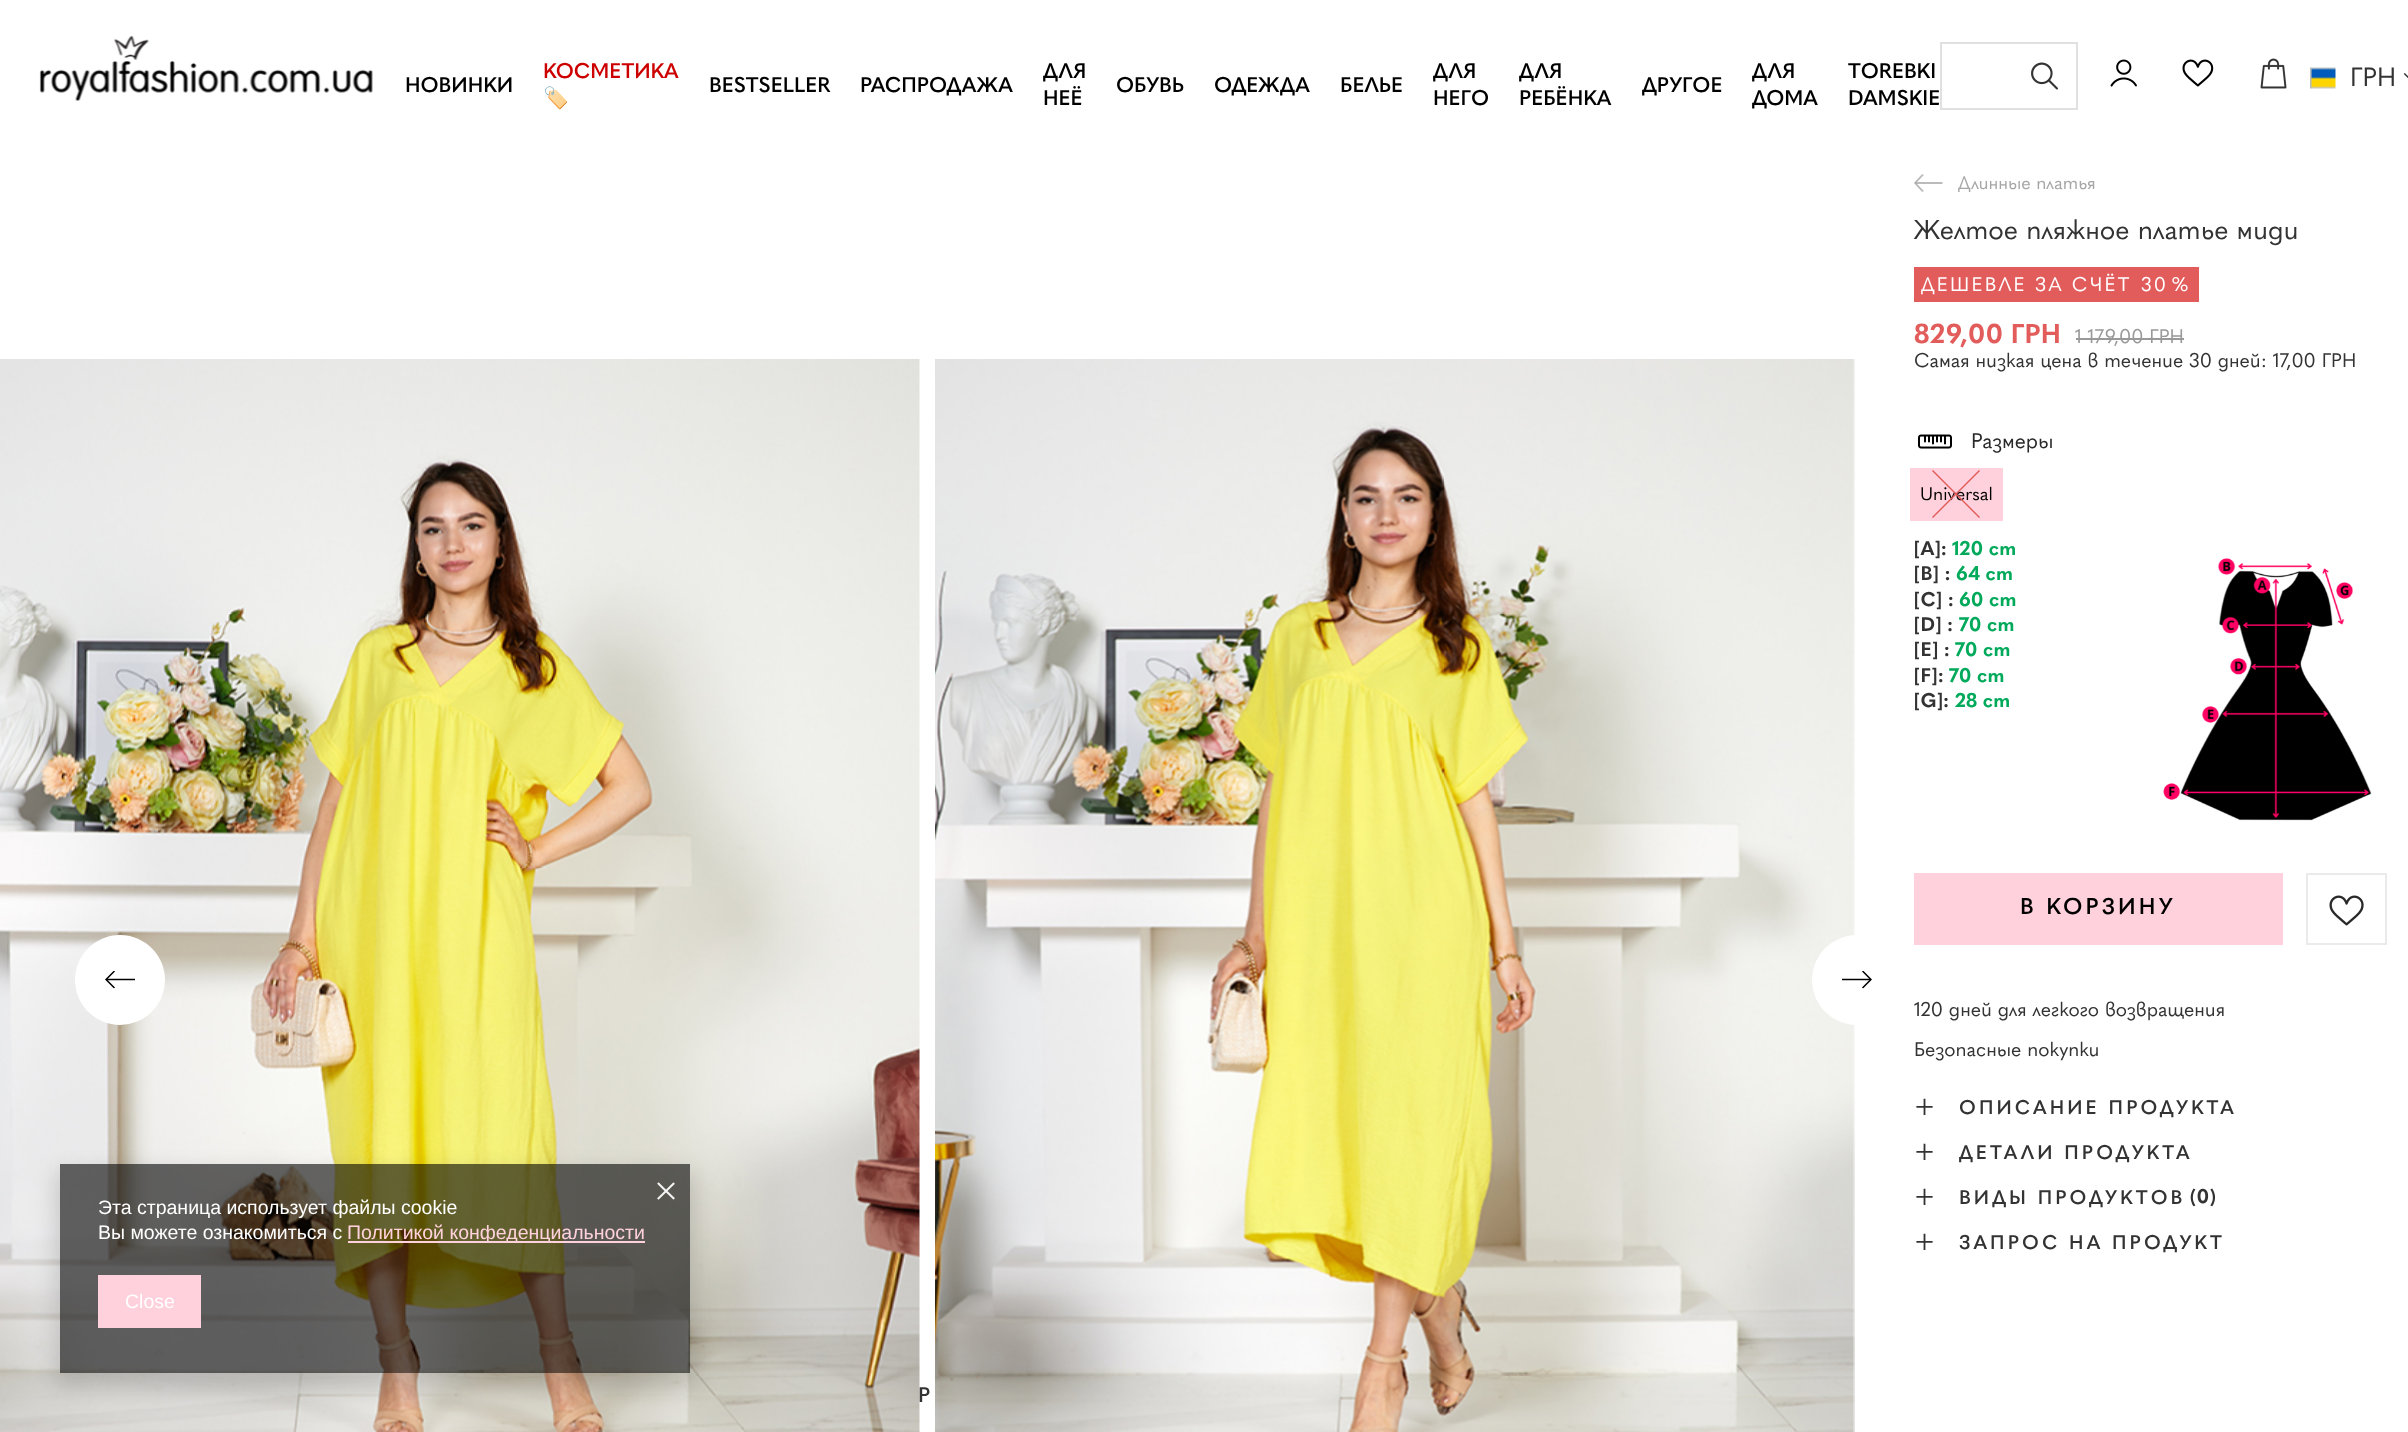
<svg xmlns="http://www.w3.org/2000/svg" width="2408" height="1432">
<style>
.a{font:19.5px Liberation Sans;fill:#fff}
.b{font:19.5px Liberation Sans;fill:#ffd1dc}
.c{font:600 21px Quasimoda;fill:#000}
.d{font:600 21px Quasimoda;fill:#cd0000}
.e{font:bold 21px Noto Color Emoji;fill:#cd0000}
.f{font:26px Quasimoda;fill:#333}
.g{font:18px Quasimoda;fill:#a6a6a6}
.h{font:27px Quasimoda;fill:#333}
.i{font:19.5px Quasimoda;letter-spacing:2.25px;fill:#fff}
.j{font:bold 27px Quasimoda;fill:#e35c5c}
.k{font:19.5px Quasimoda;fill:#999}
.l{font:19.5px Quasimoda;fill:#333}
.m{font:21px Quasimoda;fill:#292929}
.n{font:18px Quasimoda;fill:#000}
.o{font:bold 19.5px Quasimoda;fill:#333}
.p{font:bold 19.5px Quasimoda;fill:#01a95b}
.q{font:600 22.5px Quasimoda;letter-spacing:3.1px;fill:#000}
.r{font:30px Quasimoda;fill:#333}
.s{font:600 19.5px Quasimoda;letter-spacing:3.1px;fill:#333}
.t{font:600 21px Quasimoda;letter-spacing:3.1px;fill:#333}
</style>
<defs>
<clipPath id="clip1"><path d="M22 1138h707v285h-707zm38 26h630v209h-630z" clip-rule="evenodd"/></clipPath>
<clipPath id="clip2"><path d="M1959 1140h234v30H1959z"/></clipPath>
</defs>
<rect width="100%" height="100%" fill="#fff"/>
<image href="10.png" x="0" y="359" width="920" height="1073"/>
<g clip-path="url(#clip1)">
<path fill="#00000026" filter="blur(11px)" d="M56 1172h639v217H56z"/>
</g>
<path fill="#00000099" d="M60 1164h630v209H60z"/>
<image href="1.png" x="657" y="1182" width="18" height="18"/>
<path fill="#ffd1dc" d="M348 1241h297v2H348z"/>
<path fill="#ffd1dc" d="M98 1275h103v53H98z"/>
<image href="2.png" x="39" y="36" width="334" height="65"/>
<path fill="none" stroke="#e0e0e0" stroke-width="2" d="M1941 43h136v66H1941z"/>
<image href="3.png" x="2031" y="62" width="27" height="28"/>
<image href="4.png" x="2110" y="59" width="27" height="28"/>
<image href="5.png" x="2182" y="59" width="32" height="28"/>
<image href="6.png" x="2260" y="58" width="27" height="31"/>
<image href="7.png" x="2310" y="67" width="26" height="22"/>
<image href="8.png" x="2403" y="73" width="5" height="6"/>
<image href="9.png" x="1914" y="174" width="29" height="18"/>
<image href="11.png" x="935" y="359" width="920" height="1073"/>
<circle fill="#fff" cx="120" cy="980" r="45"/>
<image href="12.png" x="105" y="971" width="30" height="18"/>
<circle fill="#fff" cx="1857" cy="980" r="45"/>
<image href="13.png" x="1842" y="971" width="30" height="18"/>
<path fill="#e35c5c" d="M1914 267h285v35H1914z"/>
<path fill="#999" d="M2076 338h108v2H2076z"/>
<image href="14.png" x="1918" y="434" width="34" height="15"/>
<path fill="#ffd1dc" d="M1910 468h93v53H1910z"/>
<image href="15.png" x="2163" y="558" width="209" height="263"/>
<path fill="#ffd1dc" d="M1914 873h369v72H1914z"/>
<path fill="none" stroke="#eaeaea" stroke-width="2" d="M2307 874h79v70H2307z"/>
<image href="16.png" x="2329" y="895" width="35" height="31"/>
<text class="a" x="98" y="1214">Эта страница использует файлы cookie</text>
<text class="a" x="98" y="1239">Вы можете ознакомиться с</text>
<text class="b" x="347" y="1239">Политикой конфеденциальности</text>
<text class="a" x="125" y="1308">Close</text>
<text class="c" x="405" y="92">НОВИНКИ</text>
<text class="d" x="543" y="78">КОСМЕТИКА</text>
<text class="e" x="543" y="105">🏷️</text>
<text class="c" x="709" y="92">BESTSELLER</text>
<text class="c" x="860" y="92">РАСПРОДАЖА</text>
<text class="c" x="1043" y="78">ДЛЯ</text>
<text class="c" x="1043" y="105">НЕЁ</text>
<text class="c" x="1116" y="92">ОБУВЬ</text>
<text class="c" x="1214" y="92">ОДЕЖДА</text>
<text class="c" x="1340" y="92">БЕЛЬЕ</text>
<text class="c" x="1433" y="78">ДЛЯ</text>
<text class="c" x="1433" y="105">НЕГО</text>
<text class="c" x="1519" y="78">ДЛЯ</text>
<text class="c" x="1519" y="105">РЕБЁНКА</text>
<text class="c" x="1642" y="92">ДРУГОЕ</text>
<text class="c" x="1752" y="78">ДЛЯ</text>
<text class="c" x="1752" y="105">ДОМА</text>
<text class="c" x="1848" y="78">TOREBKI</text>
<text class="c" x="1848" y="105">DAMSKIE</text>
<text class="f" x="2350" y="86">ГРН</text>
<text class="g" x="1958" y="189">Длинные платья</text>
<text class="h" x="1914" y="239">Желтое пляжное платье миди</text>
<text class="i" x="1921" y="291">ДЕШЕВЛЕ ЗА СЧЁТ</text>
<text class="i" x="2141" y="291">30</text>
<text class="i" x="2171" y="291">%</text>
<text class="j" x="1914" y="343">829,00 ГРН</text>
<text class="k" x="2075" y="343">1 179,00 ГРН</text>
<text class="l" x="1914" y="367">Самая низкая цена в течение 30 дней: 17,00 ГРН</text>
<text class="m" x="1971" y="448">Размеры</text>
<text class="n" x="1920" y="500">Universal</text>
<path fill="#e35c5c" d="M1933 470l47 47l-1 1l-47-47z"/>
<path fill="#e35c5c" d="M1932 517l47-47l1 1l-47 47z"/>
<text class="o" x="1914" y="555">[A]:</text>
<text class="p" x="1952" y="555">120 cm</text>
<text class="o" x="1914" y="580">[B] :</text>
<text class="p" x="1956" y="580">64 cm</text>
<text class="o" x="1914" y="606">[C] :</text>
<text class="p" x="1959" y="606">60 cm</text>
<text class="o" x="1914" y="631">[D] :</text>
<text class="p" x="1959" y="631">70 cm</text>
<text class="o" x="1914" y="656">[E] :</text>
<text class="p" x="1955" y="656">70 cm</text>
<text class="o" x="1914" y="682">[F]:</text>
<text class="p" x="1949" y="682">70 cm</text>
<text class="o" x="1914" y="707">[G]:</text>
<text class="p" x="1955" y="707">28 cm</text>
<text class="q" x="2020" y="914">В КОРЗИНУ</text>
<text class="l" x="1914" y="1016">120 дней для легкого возвращения</text>
<text class="l" x="1914" y="1056">Безопасные покупки</text>
<text class="r" x="1914" y="1116">+</text>
<text class="s" x="1959" y="1114">ОПИСАНИЕ ПРОДУКТА</text>
<text class="r" x="1914" y="1161">+</text>
<g clip-path="url(#clip2)">
<text class="s" x="1959" y="1159">ДЕТАЛИ ПРОДУКТА</text>
</g>
<text class="r" x="1914" y="1206">+</text>
<text class="s" x="1959" y="1204">ВИДЫ ПРОДУКТОВ</text>
<text class="o" x="2190" y="1203">(0)</text>
<text class="r" x="1914" y="1251">+</text>
<text class="s" x="1959" y="1249">ЗАПРОС НА ПРОДУКТ</text>
<text class="t" x="918" y="1402">Р</text>
</svg>
